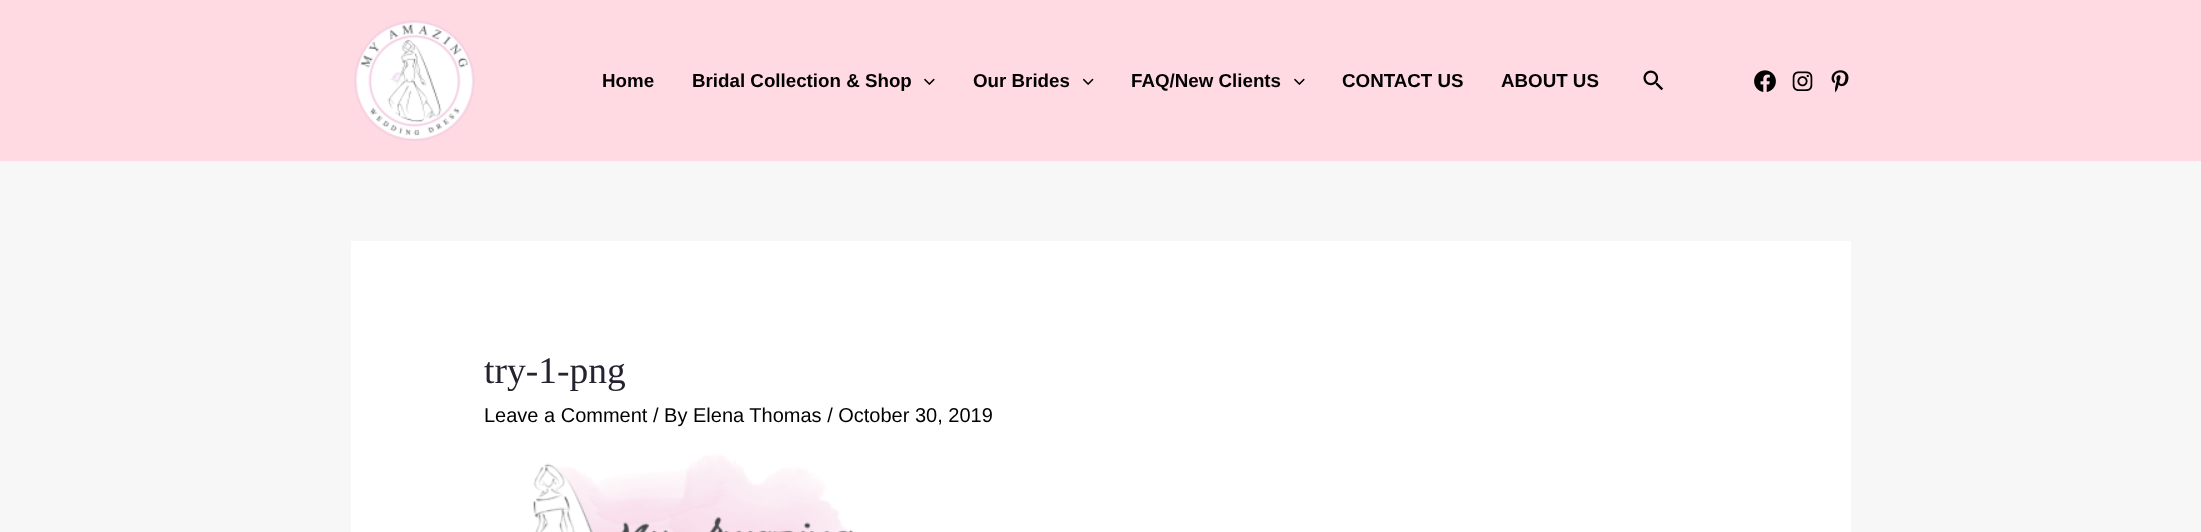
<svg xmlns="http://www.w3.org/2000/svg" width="2201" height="532">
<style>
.a{font:bold 18.75px Liberation Sans;fill:#000}
.b{font:37.5px Liberation Serif;fill:#26222f}
.c{font:20px Liberation Sans;fill:#000}
</style>
<rect width="100%" height="100%" fill="#f7f7f7"/>
<path fill="#ffdae3" d="M0 0h2201v161H0z"/>
<image href="1.png" x="354" y="20" width="121" height="121"/>
<image href="2.png" x="924" y="78" width="11" height="7"/>
<image href="3.png" x="1083" y="78" width="11" height="7"/>
<image href="2.png" x="1294" y="78" width="11" height="7"/>
<image href="4.png" x="1643" y="70" width="21" height="21"/>
<image href="5.png" x="1754" y="70" width="22" height="22"/>
<image href="6.png" x="1792" y="71" width="21" height="20"/>
<image href="7.png" x="1831" y="70" width="18" height="23"/>
<path fill="#fff" d="M351 241h1500v291H351z"/>
<image href="8.png" x="533" y="454" width="320" height="78"/>
<text class="a" x="602" y="87">Home</text>
<text class="a" x="692" y="87">Bridal Collection &amp; Shop</text>
<text class="a" x="973" y="87">Our Brides</text>
<text class="a" x="1131" y="87">FAQ/New Clients</text>
<text class="a" x="1342" y="87">CONTACT US</text>
<text class="a" x="1501" y="87">ABOUT US</text>
<text class="b" x="484" y="383">try-1-png</text>
<text class="c" x="484" y="422">Leave a Comment / By Elena Thomas / October 30, 2019</text>
</svg>
